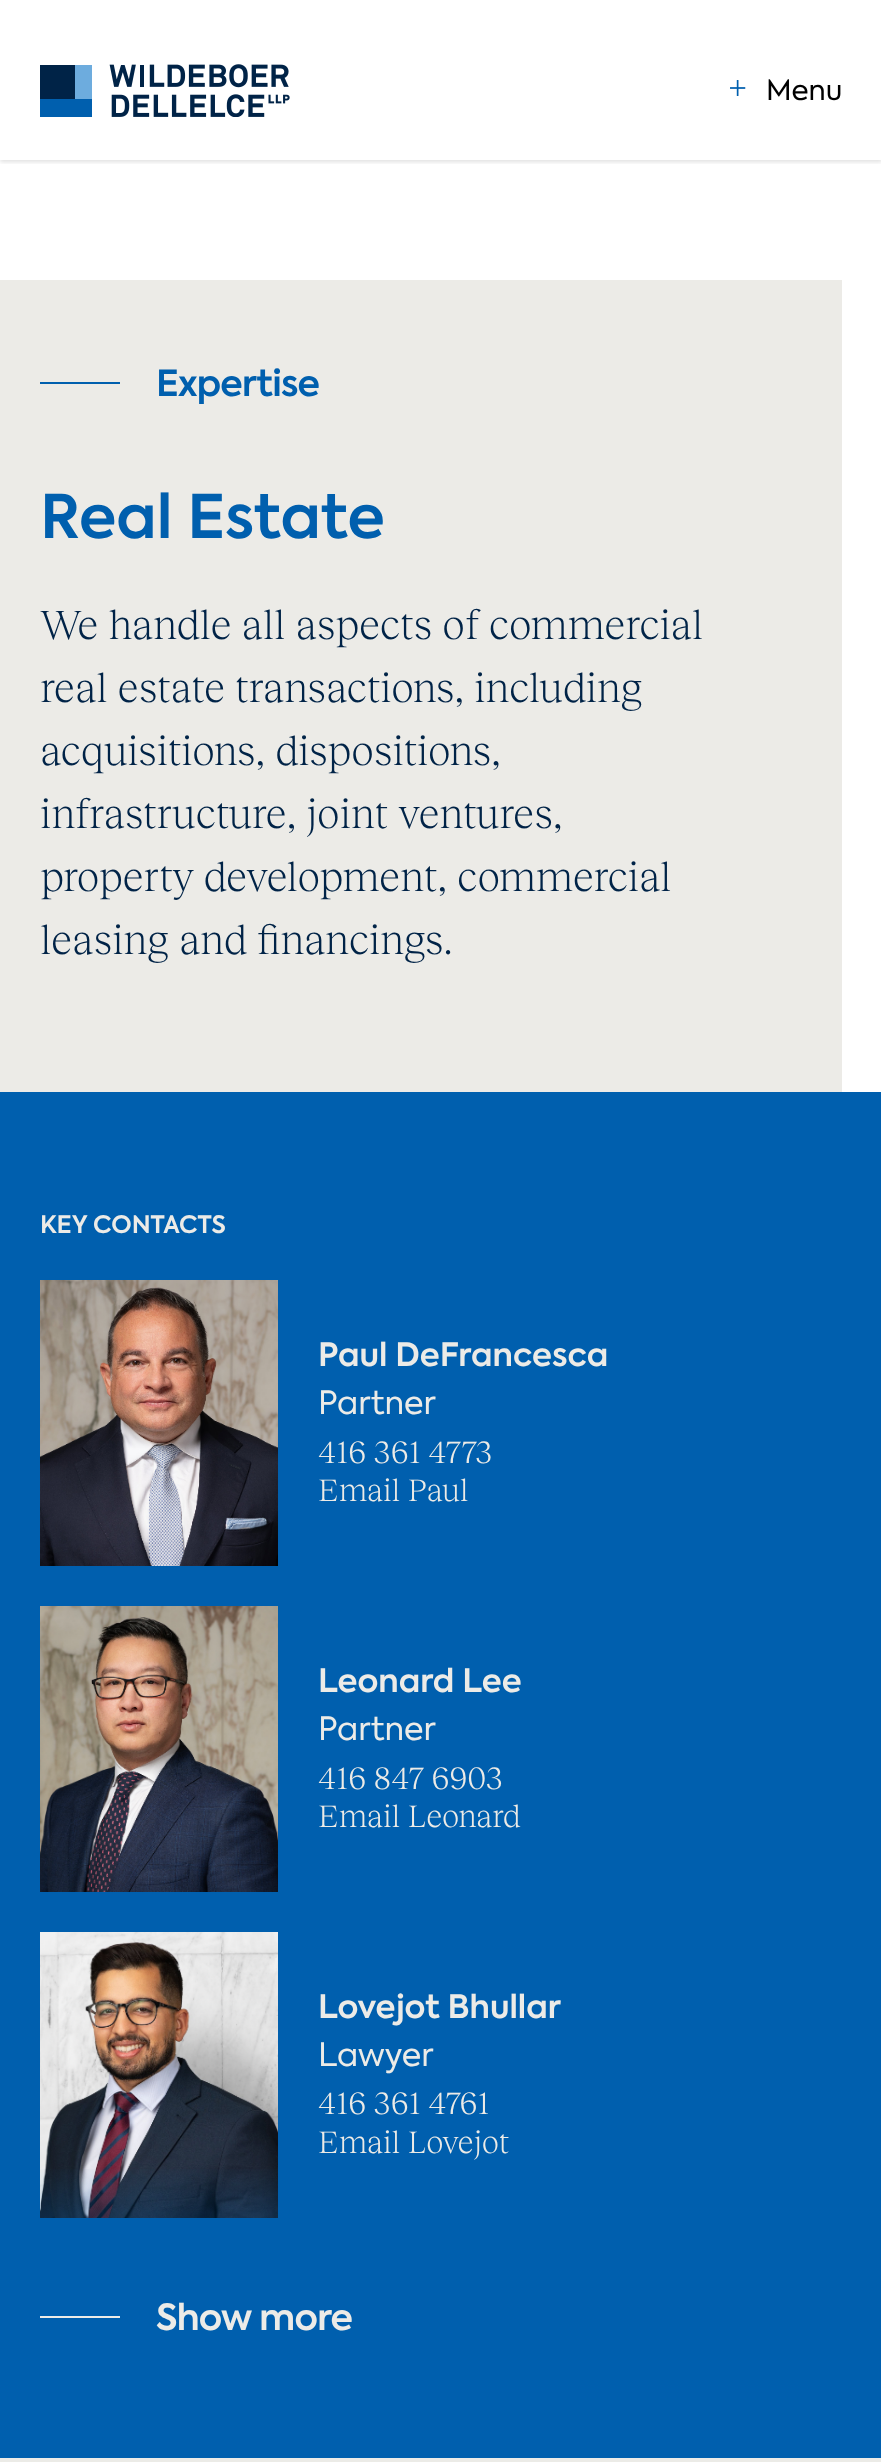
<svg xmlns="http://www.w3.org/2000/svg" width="881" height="2462">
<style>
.a{font:28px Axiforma;fill:#000}
.b{font:600 36px Axiforma;letter-spacing:-0.75px;fill:#005fae}
.c{font:600 60px Axiforma;fill:#005fae}
.d{font:300 42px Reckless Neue;fill:#002347}
.e{font:600 24px Axiforma;fill:#ecebe7}
.f{font:600 32px Axiforma;fill:#ecebe7}
.g{font:32px Axiforma;fill:#ecebe7}
.h{font:300 32px Reckless Neue;fill:#ecebe7}
.i{font:600 36px Axiforma;letter-spacing:-0.75px;fill:#ecebe7}
</style>
<defs>
<clipPath id="clip1"><path d="M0 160h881v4H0z"/></clipPath>
<linearGradient id="g1" gradientUnits="userSpaceOnUse" x1="441" y1="2418" x2="441" y2="2164"><stop offset="0.01" stop-color="#005fae"/><stop offset="1" stop-color="#005fae" stop-opacity="0"/></linearGradient>
</defs>
<rect width="100%" height="100%" fill="#fff"/>
<g clip-path="url(#clip1)">
<path fill="#0000001f" filter="blur(2px)" d="M0 2h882v160H0z"/>
</g>
<image href="1.png" x="40" y="64" width="250" height="53"/>
<image href="2.png" x="730" y="80" width="16" height="16"/>
<path fill="#ecebe7" d="M0 280h842v812H0z"/>
<path fill="#005fae" d="M40 382h80v2H40z"/>
<path fill="#005fae" d="M0 1092h881v1366H0z"/>
<image href="3.png" x="40" y="1280" width="238" height="286"/>
<image href="4.png" x="40" y="1606" width="238" height="286"/>
<image href="5.png" x="40" y="1932" width="238" height="286"/>
<path fill="#ecebe7" d="M40 2316h80v2H40z"/>
<path fill="url(#g1)" d="M40 2169h238v49H40z"/>
<path fill="#ecebe7" d="M0 2458h881v4H0z"/>
<text class="a" x="766" y="100">Menu</text>
<text class="b" x="156" y="396">Expertise</text>
<text class="c" x="40" y="538">Real Estate</text>
<text class="d" x="40" y="639">We handle all aspects of commercial</text>
<text class="d" x="40" y="702">real estate transactions, including</text>
<text class="d" x="40" y="765">acquisitions, dispositions,</text>
<text class="d" x="40" y="828">infrastructure, joint ventures,</text>
<text class="d" x="40" y="891">property development, commercial</text>
<text class="d" x="40" y="954">leasing and financings.</text>
<text class="e" x="40" y="1233">KEY CONTACTS</text>
<text class="f" x="318" y="1366">Paul DeFrancesca</text>
<text class="g" x="318" y="1414">Partner</text>
<text class="h" x="318" y="1463">416 361 4773</text>
<text class="h" x="318" y="1501">Email Paul</text>
<text class="f" x="318" y="1692">Leonard Lee</text>
<text class="g" x="318" y="1740">Partner</text>
<text class="h" x="318" y="1789">416 847 6903</text>
<text class="h" x="318" y="1827">Email Leonard</text>
<text class="f" x="318" y="2018">Lovejot Bhullar</text>
<text class="g" x="318" y="2066">Lawyer</text>
<text class="h" x="318" y="2114">416 361 4761</text>
<text class="h" x="318" y="2153">Email Lovejot</text>
<text class="i" x="156" y="2330">Show more</text>
</svg>
